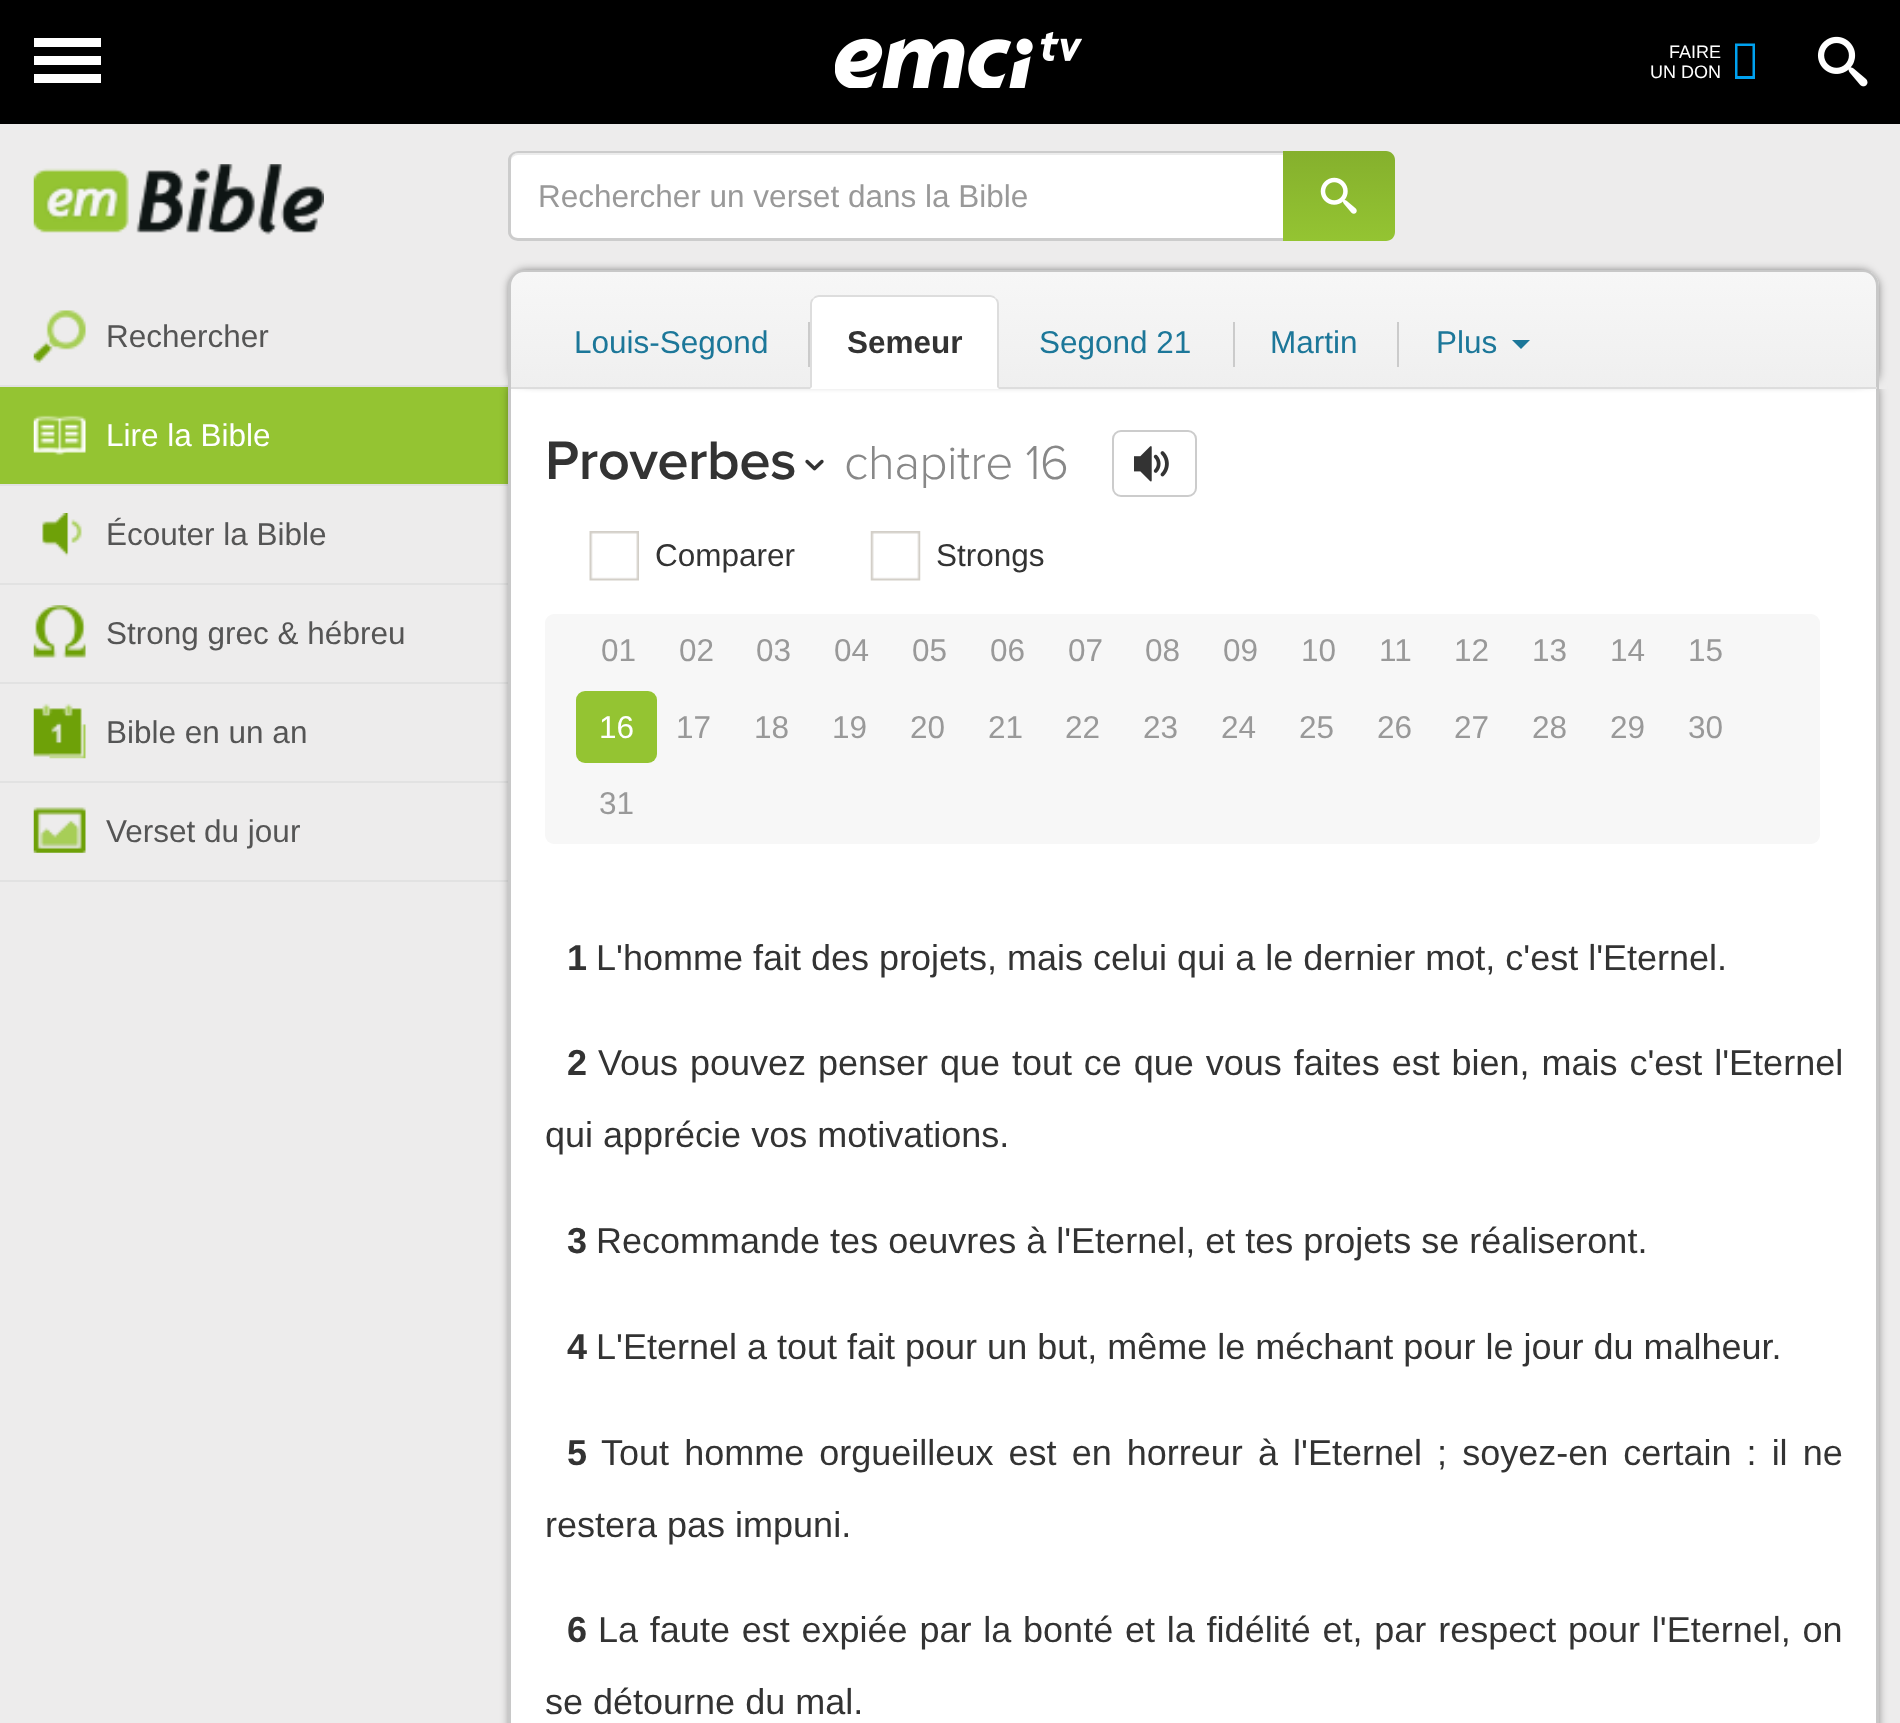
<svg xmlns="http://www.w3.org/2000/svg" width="1900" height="1723">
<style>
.a{font:18px Liberation Sans;fill:#fff}
.b{font:31.5px Liberation Sans;fill:#999}
.c{font:31.5px Liberation Sans;fill:#1c7799}
.d{font:bold 31.5px Liberation Sans;fill:#333}
.e{font:31.5px Liberation Sans;fill:#555}
.f{font:31.5px Liberation Sans;fill:#fff}
.g{font:600 56.25px Proxima Nova;letter-spacing:-0.5px;fill:#333}
.h{font:300 49.5px Proxima Nova;letter-spacing:-0.5px;fill:#888}
.i{font:31.5px Liberation Sans;fill:#333}
.j{font:bold 36px Liberation Sans;fill:#333}
.k{font:36px Liberation Sans;fill:#333}
</style>
<defs>
<linearGradient id="g1" gradientUnits="userSpaceOnUse" x1="1339" y1="151" x2="1339" y2="241"><stop offset="0" stop-color="#85b02d"/><stop offset="1" stop-color="#94c432"/></linearGradient>
<clipPath id="clip1"><path d="M525 270h1338c9 0 16 7 16 16v103h-1370v-103c0-9 7-16 16-16z"/></clipPath>
<linearGradient id="g2" gradientUnits="userSpaceOnUse" x1="1194" y1="272" x2="1194" y2="389"><stop offset="0" stop-color="#f7f7f7"/><stop offset="1" stop-color="#efefef"/></linearGradient>
</defs>
<rect width="100%" height="100%" fill="#edecec"/>
<path fill="#000" d="M0 0h1900v124H0z"/>
<path fill="#fff" d="M34 38h67v9H34z"/>
<path fill="#fff" d="M34 56h67v9H34z"/>
<path fill="#fff" d="M34 74h67v9H34z"/>
<image href="1.png" x="835" y="32" width="247" height="56"/>
<path fill="#00a2f0" d="M1735 79v-35.5h20v35.5zm2.5-3h15v-30h-15z"/>
<image href="2.png" x="1817" y="36" width="51" height="51"/>
<path fill="#e2e2e2" d="M0 385h509v2H0z"/>
<path fill="#94c432" d="M0 387h508v97H0z"/>
<path fill="#e2e2e2" d="M0 484h509v2H0z"/>
<path fill="#e2e2e2" d="M0 583h509v2H0z"/>
<path fill="#e2e2e2" d="M0 682h509v2H0z"/>
<path fill="#e2e2e2" d="M0 781h509v2H0z"/>
<path fill="#e2e2e2" d="M0 880h509v2H0z"/>
<rect fill="#00000066" filter="blur(4.5px)" x="522" y="383" width="1357" height="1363" rx="9"/>
<rect fill="#00000066" filter="blur(4.5px)" x="509" y="383" width="1356" height="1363" rx="9"/>
<path fill="#fff" d="M511 389h1365v1334H511z"/>
<path fill="#c8c8c8" fill-rule="evenodd" d="M508 376h1371v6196c0 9-7 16-16 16h-1339c-8 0-16-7-16-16zm3 0h1365v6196c0 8-6 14-13 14h-1339c-7 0-13-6-13-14z"/>
<path fill="#edecec" d="M509 373h1378v16H509z"/>
<path fill="#fff" d="M518 151h767v90h-767c-5 0-9-4-9-9v-72c0-5 4-9 9-9z"/>
<path fill="#ececec" d="M518 155h767v-2h-767c-4 0-7 3-7 7v2c0-4 3-7 7-7z"/>
<path fill="#ccc" fill-rule="evenodd" d="M518 151h767v90h-767c-5 0-10-4-10-9v-72c0-5 5-9 10-9zm0 2h767v85h-767c-4 0-7-3-7-6v-72c0-4 3-7 7-7z"/>
<path fill="url(#g1)" d="M1283 151h103c5 0 9 4 9 9v72c0 5-4 9-9 9h-103z"/>
<image href="3.png" x="1320" y="177" width="37" height="37"/>
<rect fill="#00000066" filter="blur(4.5px)" x="522" y="277" width="1357" height="106" rx="9"/>
<rect fill="#00000066" filter="blur(4.5px)" x="509" y="277" width="1356" height="106" rx="9"/>
<rect fill="#00000066" filter="blur(4.5px)" x="515" y="270" width="1357" height="106" rx="9"/>
<g clip-path="url(#clip1)">
<path fill="url(#g2)" d="M509 272h1370v115H509z"/>
</g>
<path fill="#c8c8c8" fill-rule="evenodd" d="M524 270h1339c9 0 16 7 16 16v103h-1371v-103c0-9 8-16 16-16zm0 2h1339c7 0 13 6 13 14v103h-1365v-103c0-8 6-14 13-14z"/>
<path fill="#ddd" d="M511 387h1366v2H511z"/>
<path fill="#cbcbcb" d="M808 322h2v45H808z"/>
<path fill="#fff" d="M819 295h171c5 0 9 4 9 9v85h-189v-85c0-5 4-9 9-9z"/>
<path fill="#ddd" d="M819 295c-2 0-5 1-6 3l1 1c1-1 3-2 5-2h171c2 0 4 1 5 2l1-1c-1-2-4-3-6-3z"/>
<path fill="#ddd" d="M996 298c2 1 3 3 3 6v85l-2-2v-83c0-2-1-4-2-5z"/>
<path fill="#ddd" d="M810 304v85l2-2v-83c0-2 1-4 2-5l-1-1c-2 1-3 3-3 6z"/>
<path fill="#cbcbcb" d="M1233 322h2v45H1233z"/>
<path fill="#cbcbcb" d="M1397 322h2v45H1397z"/>
<path fill="#1c7799" d="M1512 340h18l-9 9z"/>
<image href="4.png" x="33" y="164" width="291" height="71"/>
<image href="5.png" x="33" y="310" width="53" height="53"/>
<image href="6.png" x="33" y="415" width="53" height="41"/>
<image href="7.png" x="42" y="513" width="40" height="44"/>
<image href="8.png" x="33" y="605" width="53" height="53"/>
<image href="9.png" x="33" y="703" width="53" height="56"/>
<image href="10.png" x="33" y="807" width="53" height="46"/>
<image href="11.png" x="805" y="459" width="19" height="12"/>
<rect fill="none" stroke="#ccc" stroke-width="2" x="1113" y="431" width="83" height="65" rx="8"/>
<image href="12.png" x="1134" y="446" width="35" height="36"/>
<image href="13.png" x="589" y="531" width="50" height="50"/>
<image href="14.png" x="870" y="531" width="51" height="50"/>
<rect fill="#f7f7f7" x="545" y="614" width="1275" height="230" rx="9"/>
<rect fill="#94c432" x="576" y="691" width="81" height="72" rx="9"/>
<text class="a" x="1669" y="58">FAIRE</text>
<text class="a" x="1650" y="78">UN DON</text>
<text class="b" x="538" y="207">Rechercher un verset dans la Bible</text>
<text class="c" x="574" y="353">Louis-Segond</text>
<text class="d" x="847" y="353">Semeur</text>
<text class="c" x="1039" y="353">Segond 21</text>
<text class="c" x="1270" y="353">Martin</text>
<text class="c" x="1436" y="353">Plus</text>
<text class="e" x="106" y="347">Rechercher</text>
<text class="f" x="106" y="446">Lire la Bible</text>
<text class="e" x="106" y="545">Écouter la Bible</text>
<text class="e" x="106" y="644">Strong grec &amp; hébreu</text>
<text class="e" x="106" y="743">Bible en un an</text>
<text class="e" x="106" y="842">Verset du jour</text>
<text class="g" x="545" y="479">Proverbes</text>
<text class="h" x="844" y="479">chapitre 16</text>
<text class="i" x="655" y="566">Comparer</text>
<text class="i" x="936" y="566">Strongs</text>
<text class="b" x="601" y="661">01</text>
<text class="b" x="679" y="661">02</text>
<text class="b" x="756" y="661">03</text>
<text class="b" x="834" y="661">04</text>
<text class="b" x="912" y="661">05</text>
<text class="b" x="990" y="661">06</text>
<text class="b" x="1068" y="661">07</text>
<text class="b" x="1145" y="661">08</text>
<text class="b" x="1223" y="661">09</text>
<text class="b" x="1301" y="661">10</text>
<text class="b" x="1379" y="661">11</text>
<text class="b" x="1454" y="661">12</text>
<text class="b" x="1532" y="661">13</text>
<text class="b" x="1610" y="661">14</text>
<text class="b" x="1688" y="661">15</text>
<text class="f" x="599" y="738">16</text>
<text class="b" x="676" y="738">17</text>
<text class="b" x="754" y="738">18</text>
<text class="b" x="832" y="738">19</text>
<text class="b" x="910" y="738">20</text>
<text class="b" x="988" y="738">21</text>
<text class="b" x="1065" y="738">22</text>
<text class="b" x="1143" y="738">23</text>
<text class="b" x="1221" y="738">24</text>
<text class="b" x="1299" y="738">25</text>
<text class="b" x="1377" y="738">26</text>
<text class="b" x="1454" y="738">27</text>
<text class="b" x="1532" y="738">28</text>
<text class="b" x="1610" y="738">29</text>
<text class="b" x="1688" y="738">30</text>
<text class="b" x="599" y="814">31</text>
<text class="j" x="567" y="970">1</text>
<text class="k" x="596" y="970">L'homme fait des projets, mais celui qui a le dernier mot, c'est l'Eternel.</text>
<text class="j" x="567" y="1075">2</text>
<text class="k" x="598" y="1075" word-spacing="1.9">Vous pouvez penser que tout ce que vous faites est bien, mais c'est l'Eternel</text>
<text class="k" x="545" y="1147">qui apprécie vos motivations.</text>
<text class="j" x="567" y="1253">3</text>
<text class="k" x="596" y="1253">Recommande tes oeuvres à l'Eternel, et tes projets se réaliseront.</text>
<text class="j" x="567" y="1359">4</text>
<text class="k" x="596" y="1359">L'Eternel a tout fait pour un but, même le méchant pour le jour du malheur.</text>
<text class="j" x="567" y="1465">5</text>
<text class="k" x="601" y="1465" word-spacing="5.1">Tout homme orgueilleux est en horreur à l'Eternel ; soyez-en certain : il ne</text>
<text class="k" x="545" y="1537">restera pas impuni.</text>
<text class="j" x="567" y="1642">6</text>
<text class="k" x="598" y="1642" word-spacing="1.8">La faute est expiée par la bonté et la fidélité et, par respect pour l'Eternel, on</text>
<text class="k" x="545" y="1714">se détourne du mal.</text>
</svg>
